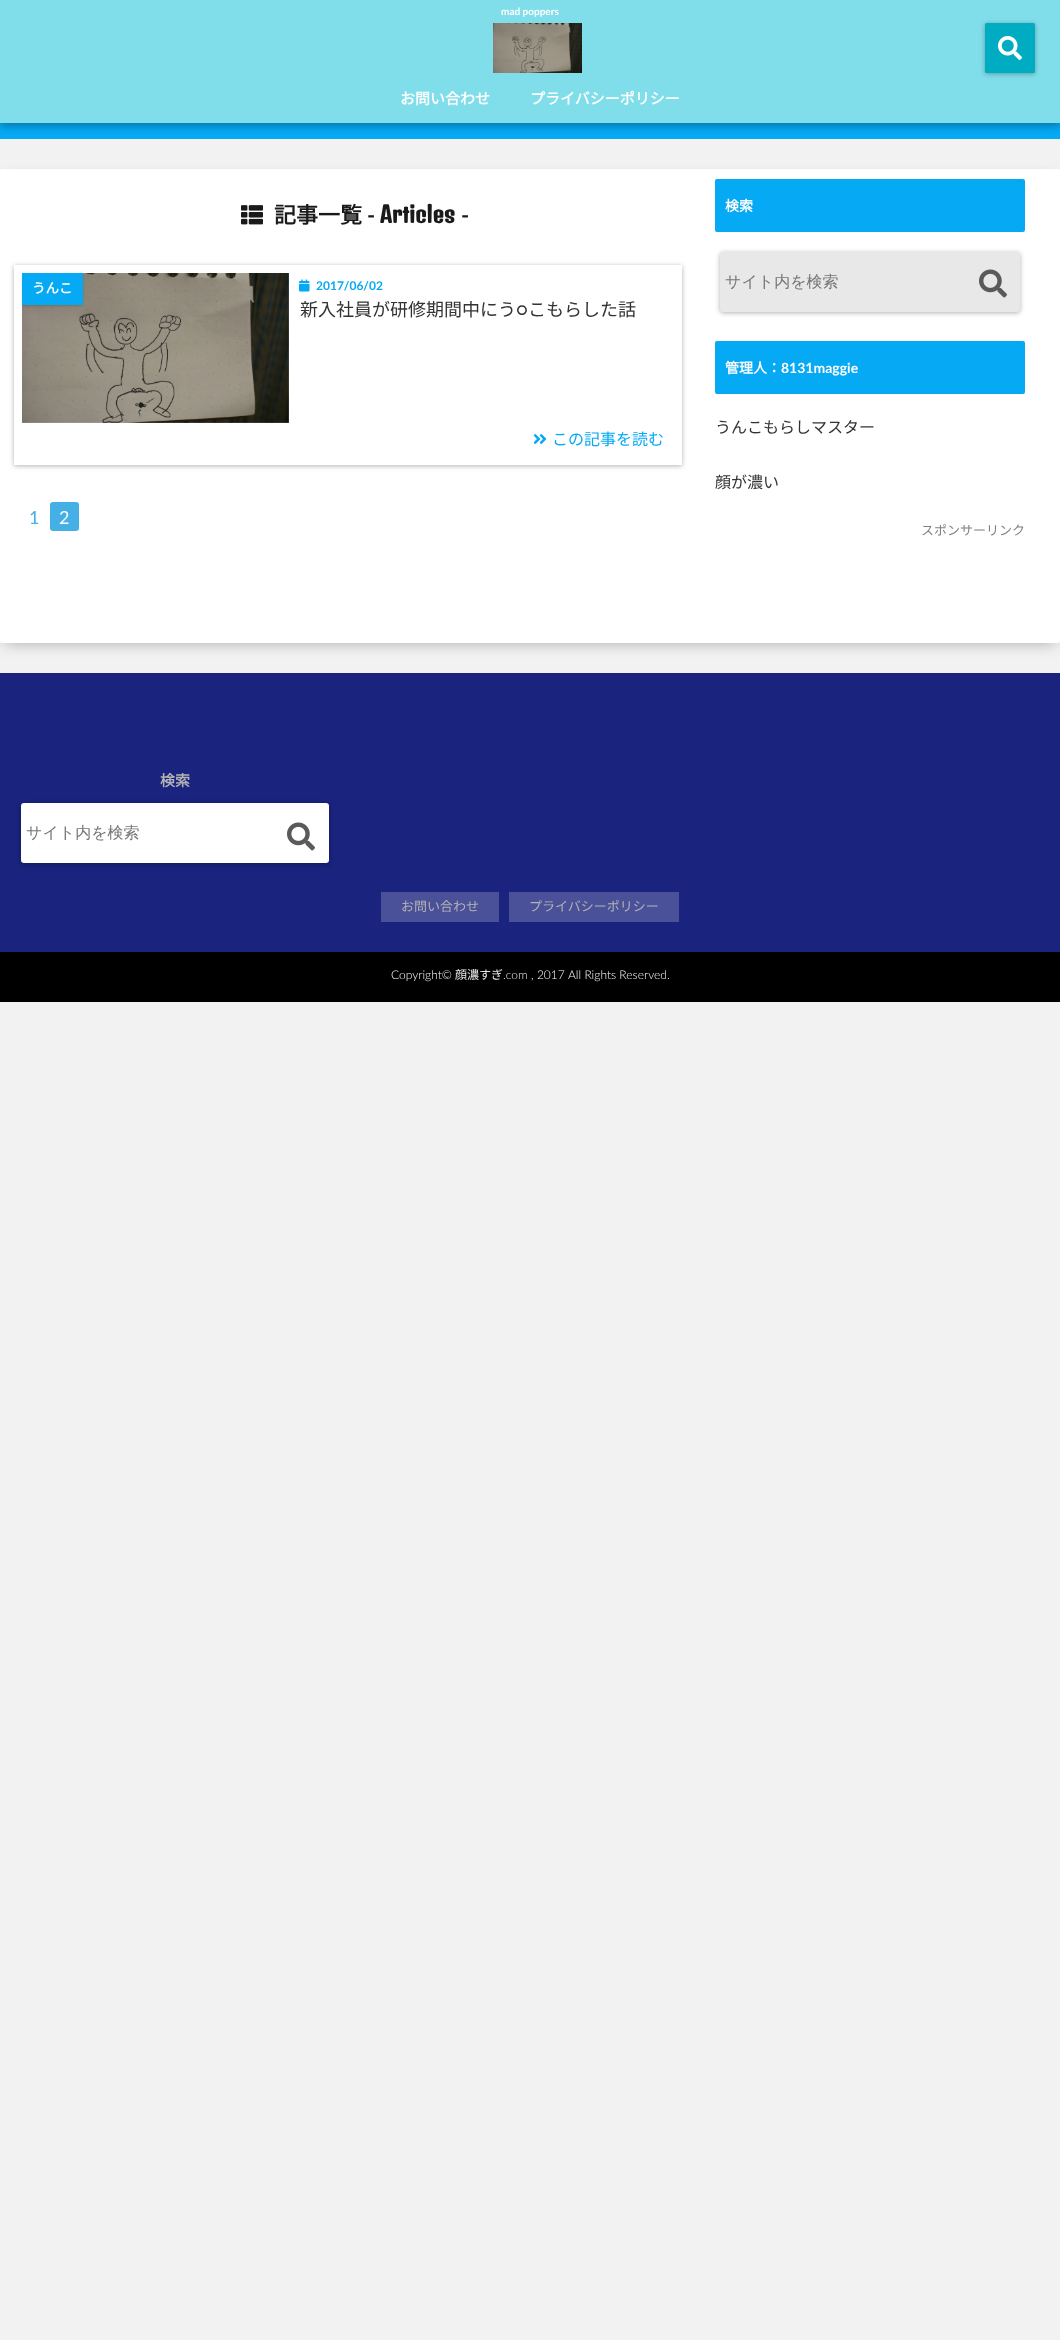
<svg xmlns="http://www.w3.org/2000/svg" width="1060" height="2340">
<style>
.a{font:bold 10px Lato;fill:#fff}
.b{font:bold 15px Noto Sans JP;fill:#fff}
.c{font:bold 22px Noto Sans JP;fill:#1a1a1a}
.d{font:bold 22px Lato;fill:#1a1a1a}
.e{font:bold 22px Denk One;fill:#1a1a1a}
.f{font:bold 13.5px Noto Sans JP;fill:#fff}
.g{font:bold 12px Lato;fill:#06a9f4}
.h{font:100 18px Noto Sans JP;fill:#333}
.i{font:500 18px Lato;fill:#333}
.j{font:100 16px Noto Sans JP;fill:#06a9f4}
.k{font:18px Lato;fill:#45b0e6}
.l{font:18px Lato;fill:#fff}
.m{font:bold 14px Noto Sans JP;fill:#fff}
.n{font:500 16px WenQuanYi Zen Hei;fill:#757575}
.o{font:bold 14px Lato;fill:#fff}
.p{font:100 16px Noto Sans JP;fill:#333}
.q{font:100 13px Noto Sans JP;fill:#808080}
.r{font:bold 15px Noto Sans JP;fill:#b3b3b3}
.s{font:100 13px Noto Sans JP;fill:#b3b3b3}
.t{font:300 12px Lato;fill:#fff}
.u{font:100 12px Noto Sans JP;fill:#eaeaea}
.v{font:300 12px Lato;fill:#eaeaea}
</style>
<defs>
<clipPath id="clip1"><path d="M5 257h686v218h-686zm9 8h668v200h-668z" clip-rule="evenodd"/></clipPath>
</defs>
<rect width="100%" height="100%" fill="#f2f2f2"/>
<path fill="#06a9f4" d="M0 123h1060v16H0z"/>
<path fill="#0000004d" filter="blur(4px)" d="M0 3h1060v123H0z"/>
<path fill="#80deea" d="M0 0h1060v123H0z"/>
<image href="1.png" x="493" y="23" width="89" height="50"/>
<rect fill="#0000004d" filter="blur(2.5px)" x="985" y="24" width="50" height="50" rx="1.5"/>
<rect fill="#00acc1" x="985" y="23" width="50" height="50" rx="1.5"/>
<image href="2.png" x="998" y="36" width="24" height="24"/>
<path fill="#0000004d" filter="blur(7.5px)" d="M5 179h1050v464H5z"/>
<rect fill="#fff" y="169" width="1060" height="474" rx="2"/>
<image href="3.png" x="241" y="205" width="22" height="20"/>
<g clip-path="url(#clip1)">
<path fill="#0000004d" filter="blur(2.5px)" d="M14 266h668v200H14z"/>
</g>
<image href="4.png" x="22" y="273" width="267" height="150"/>
<path fill="#0000004d" filter="blur(1.5px)" d="M23 275h59v30H23z"/>
<path fill="#06a9f4" d="M22 273h61v32H22z"/>
<image href="5.png" x="299" y="279" width="11" height="13"/>
<image href="6.png" x="533" y="434" width="14" height="10"/>
<rect fill="#45b0e6" x="50" y="502" width="29" height="29" rx="3"/>
<rect fill="#06a9f4" x="715" y="179" width="310" height="53" rx="2"/>
<rect fill="#0000004d" filter="blur(2.5px)" x="720" y="253" width="300" height="60" rx="3"/>
<rect fill="#e8e8e8" x="720" y="252" width="300" height="60" rx="3"/>
<image href="7.png" x="979" y="269" width="28" height="29"/>
<rect fill="#06a9f4" x="715" y="341" width="310" height="53" rx="2"/>
<path fill="#1a237e" d="M0 673h1060v279H0z"/>
<rect fill="#0000004d" filter="blur(2.5px)" x="21" y="804" width="308" height="60" rx="3"/>
<rect fill="#fff" x="21" y="803" width="308" height="60" rx="3"/>
<image href="8.png" x="287" y="822" width="28" height="29"/>
<path fill="#4a5199" d="M381 892h118v30H381z"/>
<path fill="#4a5199" d="M509 892h170v30H509z"/>
<path fill="#000" d="M0 952h1060v50H0z"/>
<text class="a" x="501" y="15">mad poppers</text>
<text class="b" x="400" y="104">お問い合わせ</text>
<text class="b" x="530" y="104">プライバシーポリシー</text>
<text class="c" x="274" y="223">記事一覧</text>
<text class="d" x="367" y="223">-</text>
<text class="e" x="380" y="223">Articles</text>
<text class="d" x="461" y="223">-</text>
<text class="f" x="32" y="293">うんこ</text>
<text class="g" x="316" y="290">2017/06/02</text>
<text class="h" x="300" y="316">新入社員が研修期間中にう</text>
<text class="i" x="516" y="316">○</text>
<text class="h" x="528" y="316">こもらした話</text>
<text class="j" x="552" y="445">この記事を読む</text>
<text class="k" x="29" y="524">1</text>
<text class="l" x="59" y="524">2</text>
<text class="m" x="725" y="211">検索</text>
<text class="n" x="725" y="287">サイト内を検索</text>
<text class="m" x="725" y="373">管理人：</text>
<text class="o" x="781" y="373">8131maggie</text>
<text class="p" x="715" y="433">うんこもらしマスター</text>
<text class="p" x="715" y="488">顔が濃い</text>
<text class="q" x="921" y="535">スポンサーリンク</text>
<text class="r" x="160" y="786">検索</text>
<text class="n" x="26" y="838">サイト内を検索</text>
<text class="s" x="401" y="911">お問い合わせ</text>
<text class="s" x="529" y="911">プライバシーポリシー</text>
<text class="t" x="391" y="979">Copyright©</text>
<text class="u" x="455" y="979">顔濃すぎ</text>
<text class="v" x="503" y="979">.com</text>
<text class="t" x="531" y="979">, 2017</text>
<text class="t" x="568" y="979">All Rights Reserved.</text>
</svg>
